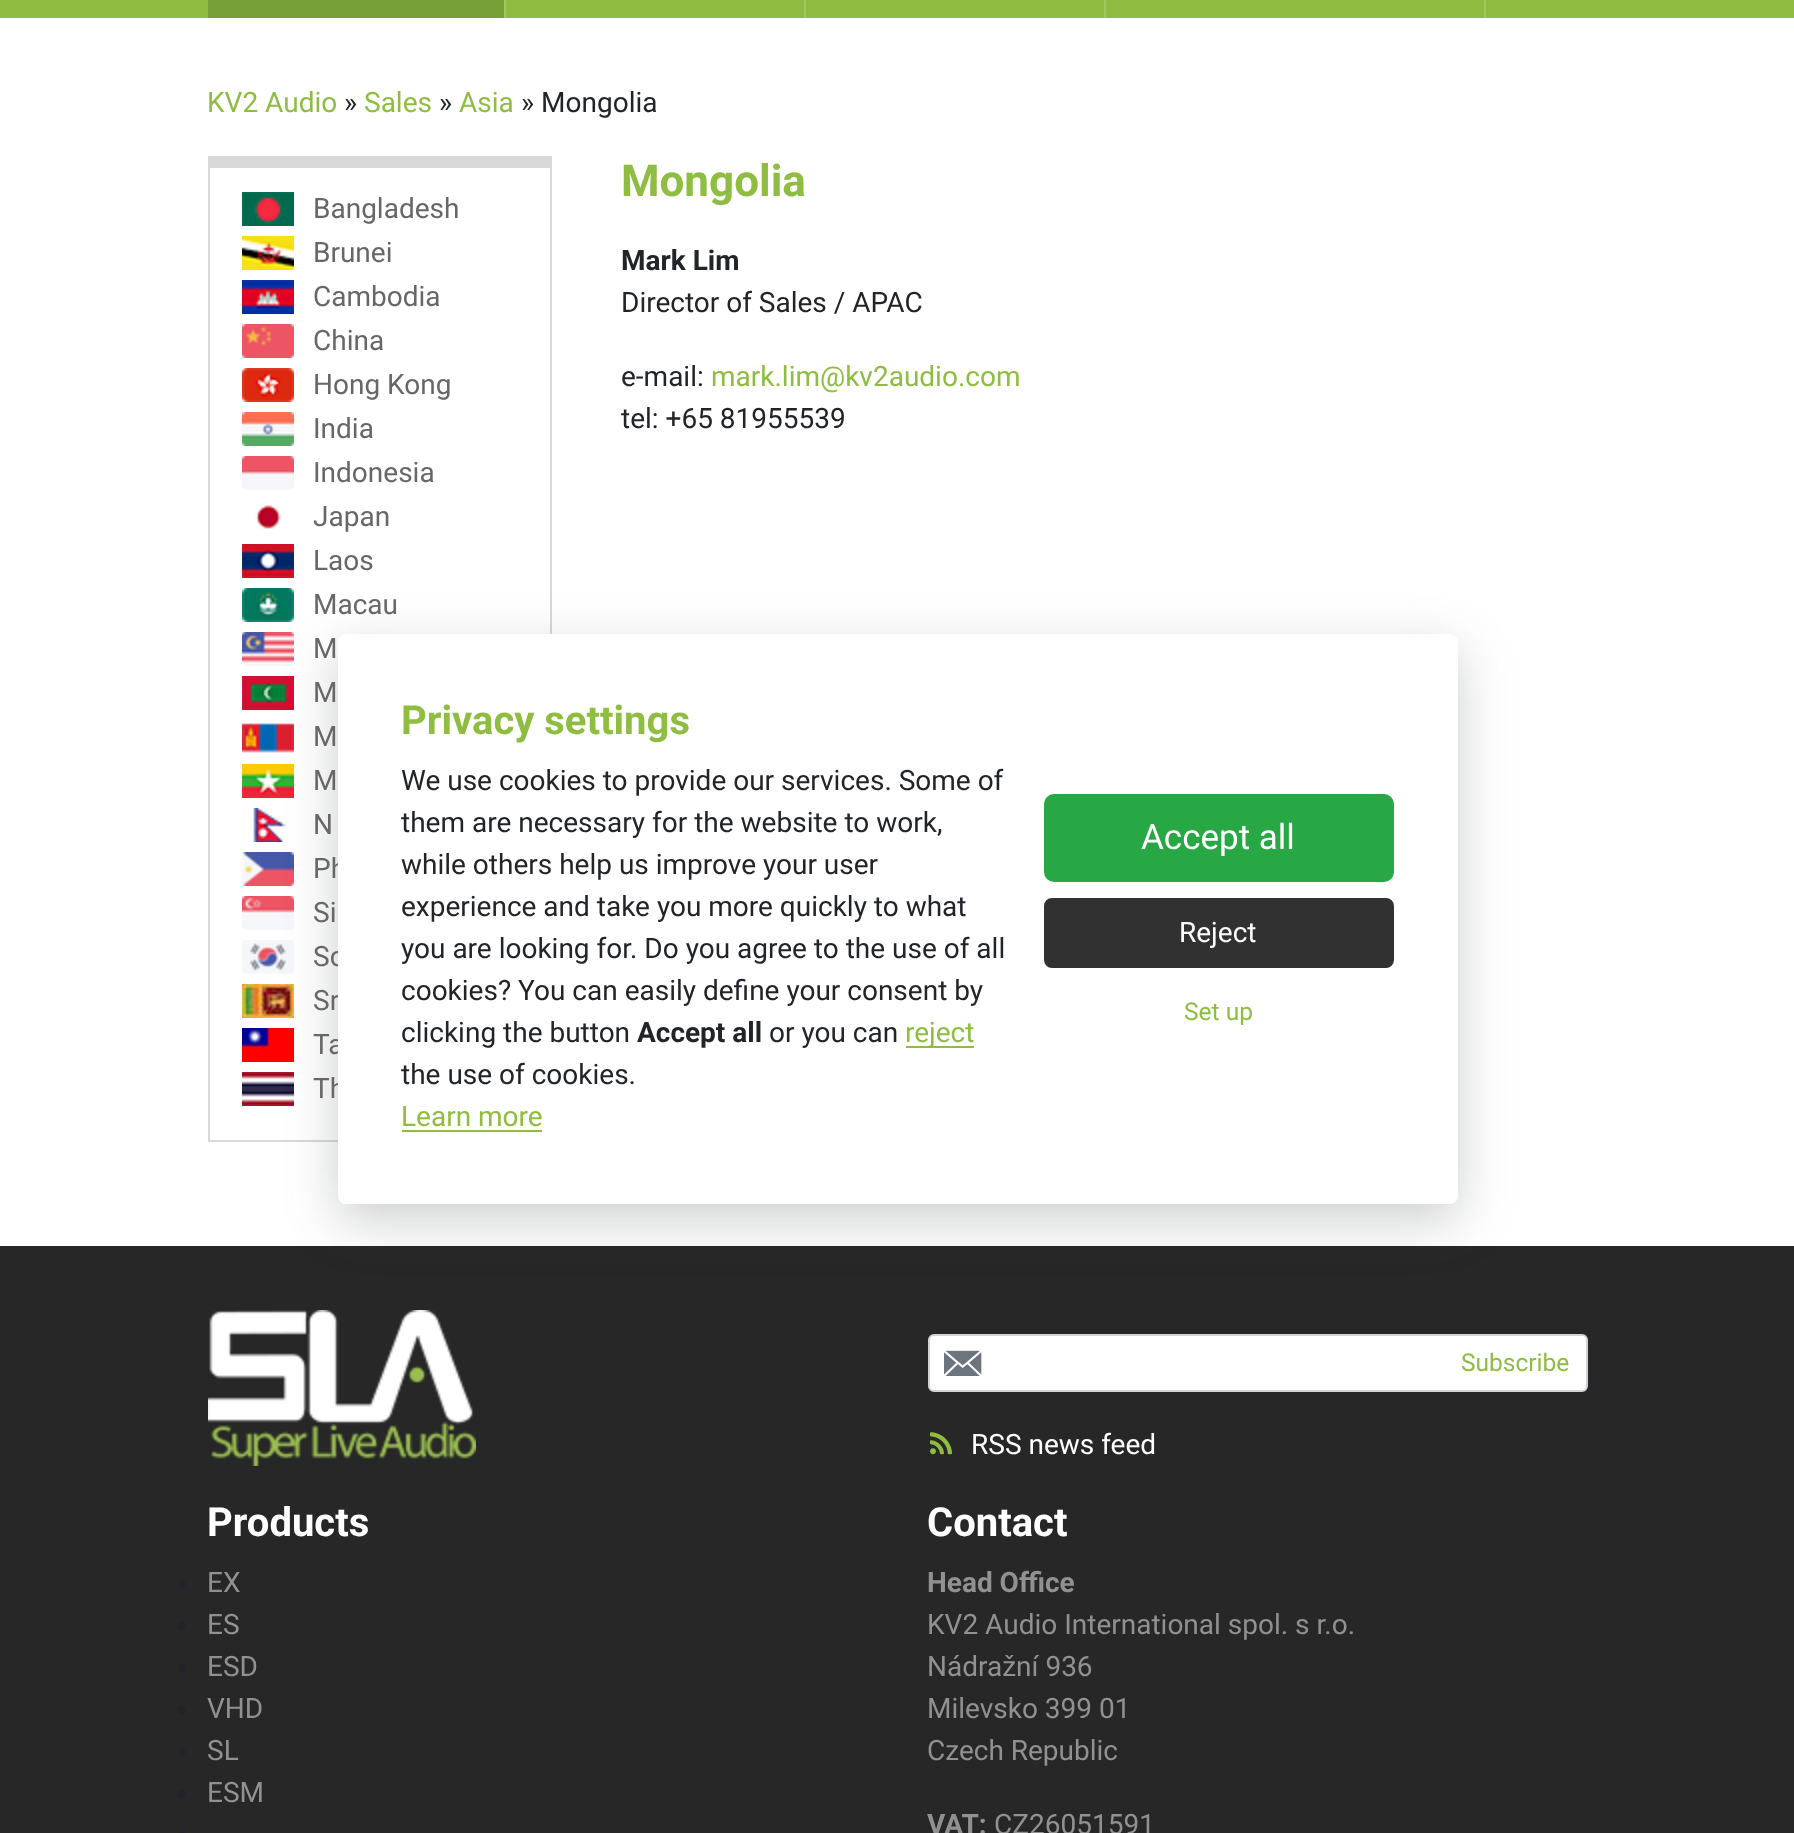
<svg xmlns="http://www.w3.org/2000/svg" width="1794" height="1833">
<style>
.a{font:28px Roboto;fill:#8ebd41}
.b{font:28px Roboto;fill:#212529}
.c{font:28px Roboto;fill:#676767}
.d{font:bold 44px Roboto;fill:#8ebd41}
.e{font:bold 28px Roboto;fill:#212529}
.f{font:bold 40px Roboto;fill:#8ebd41}
.g{font:35px Roboto;fill:#fff}
.h{font:28px Roboto;fill:#fff}
.i{font:24.5px Roboto;fill:#8ebd41}
.j{font:bold 40px Roboto;fill:#fff}
.k{font:28px Roboto;fill:#919191}
.l{font:bold 28px Roboto;fill:#919191}
</style>
<rect width="100%" height="100%" fill="#fff"/>
<path fill="#8ebd41" d="M0 0h1794v18H0z"/>
<path fill="#779f37" d="M208 0h296v18H208z"/>
<path fill="#a0c85f" d="M504 0h2v18H504z"/>
<path fill="#a0c85f" d="M804 0h2v18H804z"/>
<path fill="#a0c85f" d="M1104 0h2v18H1104z"/>
<path fill="#a0c85f" d="M1484 0h2v18H1484z"/>
<path fill="#d9d9d9" d="M210 156h340v12H210z"/>
<path fill="#d9d9d9" d="M550 156h2v478H550z"/>
<path fill="#d9d9d9" d="M208 1140h130v2H208z"/>
<path fill="#d9d9d9" d="M208 156h2v986H208z"/>
<image href="1.png" x="242" y="192" width="52" height="34"/>
<image href="2.png" x="242" y="236" width="52" height="34"/>
<image href="3.png" x="242" y="280" width="52" height="34"/>
<image href="4.png" x="242" y="324" width="52" height="34"/>
<image href="5.png" x="242" y="368" width="52" height="34"/>
<image href="6.png" x="242" y="412" width="52" height="34"/>
<image href="7.png" x="242" y="456" width="52" height="34"/>
<image href="8.png" x="255" y="505" width="26" height="24"/>
<image href="9.png" x="242" y="544" width="52" height="34"/>
<image href="10.png" x="242" y="588" width="52" height="34"/>
<image href="11.png" x="242" y="632" width="52" height="34"/>
<image href="12.png" x="242" y="676" width="52" height="34"/>
<image href="13.png" x="242" y="723" width="52" height="30"/>
<image href="14.png" x="242" y="764" width="52" height="34"/>
<image href="15.png" x="253" y="808" width="34" height="34"/>
<image href="16.png" x="242" y="852" width="52" height="34"/>
<image href="17.png" x="242" y="896" width="52" height="34"/>
<image href="18.png" x="242" y="940" width="52" height="34"/>
<image href="19.png" x="242" y="984" width="52" height="34"/>
<image href="20.png" x="242" y="1028" width="52" height="34"/>
<image href="21.png" x="242" y="1072" width="52" height="34"/>
<path fill="#272727" d="M0 1246h1794v587H0z"/>
<rect fill="#343a4040" filter="blur(26px)" x="338" y="650" width="1120" height="570" rx="8"/>
<image href="22.png" x="208" y="1310" width="268" height="156"/>
<rect fill="#fff" stroke="#ced4da" stroke-width="2" x="929" y="1335" width="658" height="56" rx="5"/>
<image href="23.png" x="944" y="1350" width="38" height="26"/>
<image href="24.png" x="930" y="1432" width="22" height="23"/>
<circle fill="#212529" cx="182" cy="1584" r="4"/>
<circle fill="#212529" cx="182" cy="1626" r="4"/>
<circle fill="#212529" cx="182" cy="1668" r="4"/>
<circle fill="#212529" cx="182" cy="1710" r="4"/>
<circle fill="#212529" cx="182" cy="1752" r="4"/>
<circle fill="#212529" cx="182" cy="1794" r="4"/>
<rect fill="#212529" x="178" y="1832" width="8" height="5" rx="4"/>
<text class="a" x="207" y="112">KV2 Audio</text>
<text class="b" x="344" y="112">»</text>
<text class="a" x="364" y="112">Sales</text>
<text class="b" x="439" y="112">»</text>
<text class="a" x="459" y="112">Asia</text>
<text class="b" x="521" y="112">» Mongolia</text>
<text class="c" x="313" y="218">Bangladesh</text>
<text class="c" x="313" y="262">Brunei</text>
<text class="c" x="313" y="306">Cambodia</text>
<text class="c" x="313" y="350">China</text>
<text class="c" x="313" y="394">Hong Kong</text>
<text class="c" x="313" y="438">India</text>
<text class="c" x="313" y="482">Indonesia</text>
<text class="c" x="313" y="526">Japan</text>
<text class="c" x="313" y="570">Laos</text>
<text class="c" x="313" y="614">Macau</text>
<text class="c" x="313" y="658">M</text>
<text class="c" x="313" y="702">M</text>
<text class="c" x="313" y="746">M</text>
<text class="c" x="313" y="790">M</text>
<text class="c" x="313" y="834">N</text>
<text class="c" x="313" y="878">Ph</text>
<text class="c" x="313" y="922">Si</text>
<text class="c" x="313" y="966">So</text>
<text class="c" x="313" y="1010">Sr</text>
<text class="c" x="313" y="1054">Ta</text>
<text class="c" x="313" y="1098">Th</text>
<text class="d" x="621" y="196">Mongolia</text>
<text class="e" x="621" y="270">Mark Lim</text>
<text class="b" x="621" y="312">Director of Sales / APAC</text>
<text class="b" x="621" y="386">e-mail:</text>
<text class="a" x="711" y="386">mark.lim@kv2audio.com</text>
<text class="b" x="621" y="428">tel: +65 81955539</text>
<rect fill="#fff" x="338" y="634" width="1120" height="570" rx="8"/>
<text class="f" x="401" y="734">Privacy settings</text>
<text class="b" x="401" y="790">We use cookies to provide our services. Some of</text>
<text class="b" x="401" y="832">them are necessary for the website to work,</text>
<text class="b" x="401" y="874">while others help us improve your user</text>
<text class="b" x="401" y="916">experience and take you more quickly to what</text>
<text class="b" x="401" y="958">you are looking for. Do you agree to the use of all</text>
<text class="b" x="401" y="1000">cookies? You can easily define your consent by</text>
<text class="b" x="401" y="1042">clicking the button</text>
<text class="e" x="637" y="1042">Accept all</text>
<text class="b" x="769" y="1042">or you can</text>
<path fill="#8ebd41" d="M906 1046h68v2H906z"/>
<text class="a" x="905" y="1042">reject</text>
<text class="b" x="401" y="1084">the use of cookies.</text>
<text class="a" x="401" y="1126">Learn more</text>
<path fill="#8ebd41" d="M402 1130h140v2H402z"/>
<rect fill="#28a745" stroke="#28a745" stroke-width="2" x="1045" y="795" width="348" height="86" rx="9"/>
<text class="g" x="1141" y="849">Accept all</text>
<rect fill="#313131" stroke="#313131" stroke-width="2" x="1045" y="899" width="348" height="68" rx="7"/>
<text class="h" x="1179" y="942">Reject</text>
<text class="i" x="1184" y="1020">Set up</text>
<text class="i" x="1461" y="1371">Subscribe</text>
<text class="h" x="971" y="1454">RSS news feed</text>
<text class="j" x="207" y="1536">Products</text>
<text class="k" x="207" y="1592">EX</text>
<text class="k" x="207" y="1634">ES</text>
<text class="k" x="207" y="1676">ESD</text>
<text class="k" x="207" y="1718">VHD</text>
<text class="k" x="207" y="1760">SL</text>
<text class="k" x="207" y="1802">ESM</text>
<text class="j" x="927" y="1536">Contact</text>
<text class="l" x="927" y="1592">Head Office</text>
<text class="k" x="927" y="1634">KV2 Audio International spol. s r.o.</text>
<text class="k" x="927" y="1676">Nádražní 936</text>
<text class="k" x="927" y="1718">Milevsko 399 01</text>
<text class="k" x="927" y="1760">Czech Republic</text>
<text class="l" x="927" y="1834">VAT:</text>
<text class="k" x="994" y="1834">CZ26051591</text>
</svg>
